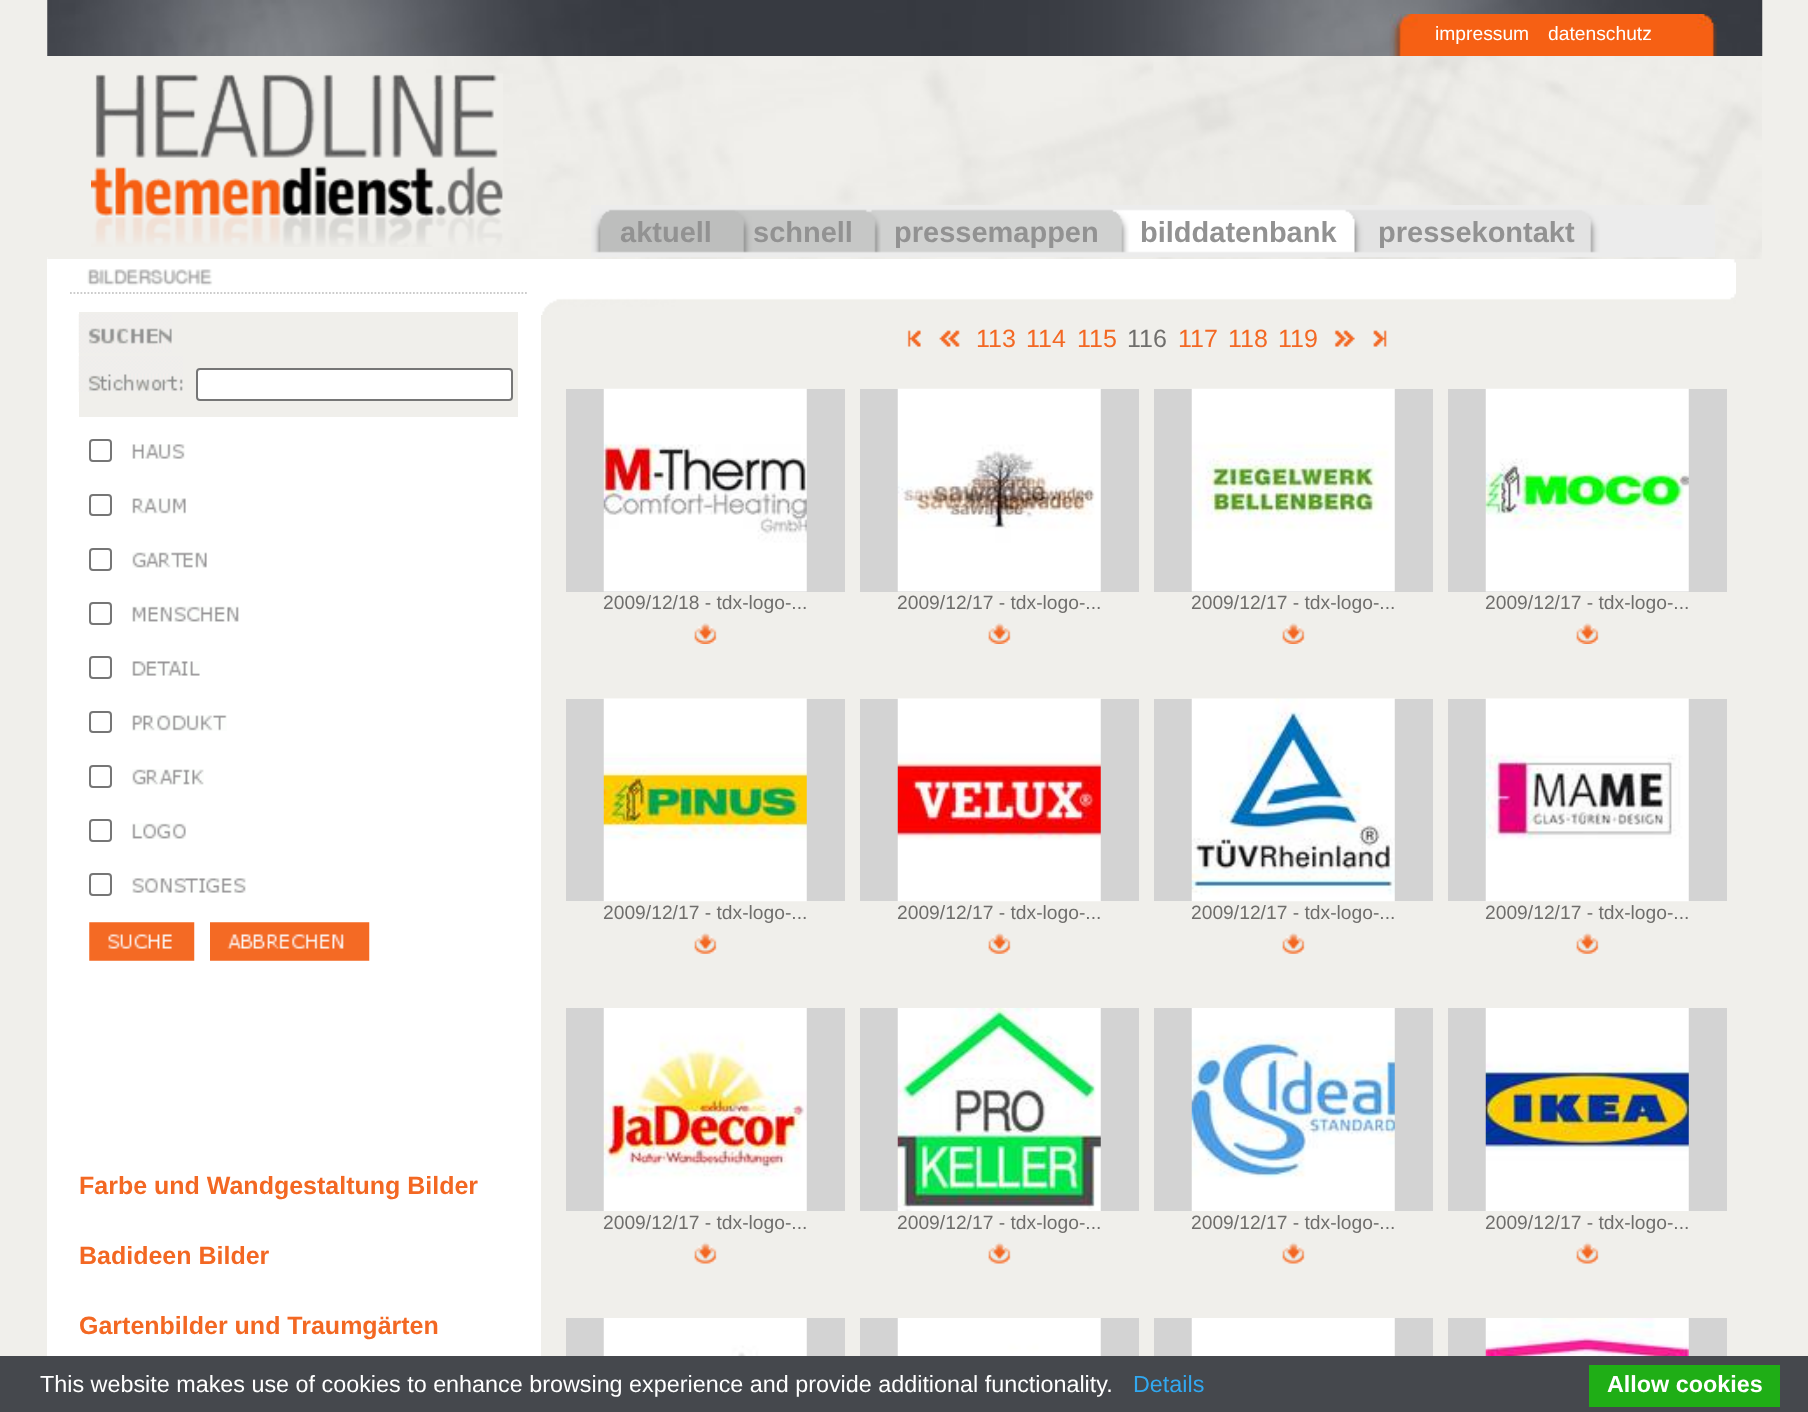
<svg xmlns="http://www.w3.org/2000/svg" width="1808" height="1412">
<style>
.a{font:19.25px Liberation Sans;fill:#fff}
.b{font:bold 29px Liberation Sans;fill:#929292}
.c{font:25px Liberation Sans;fill:#f36823}
.d{font:25px Liberation Sans;fill:#6f6e6c}
.e{font:19.25px Liberation Sans;fill:#6f6e6c}
.f{font:bold 25px Liberation Sans;fill:#f36823}
.g{font:23.35px Liberation Sans;fill:#fff}
.h{font:23.35px Liberation Sans;fill:#31a8f0}
.i{font:bold 23.35px Liberation Sans;fill:#fff}
</style>
<rect width="100%" height="100%" fill="#f0efeb"/>
<image href="1.png" x="47" y="0" width="1716" height="56"/>
<image href="2.png" x="1389" y="14" width="328" height="42"/>
<path fill="#fff" d="M47 257h494v1099H47z"/>
<image href="3.png" x="47" y="56" width="1715" height="203"/>
<image href="4.png" x="91" y="73" width="412" height="174"/>
<image href="5.png" x="591" y="205" width="1124" height="52"/>
<image href="6.png" x="541" y="259" width="1195" height="56"/>
<image href="7.png" x="907" y="330" width="14" height="17"/>
<image href="8.png" x="939" y="330" width="21" height="17"/>
<image href="9.png" x="1334" y="330" width="21" height="17"/>
<image href="10.png" x="1373" y="330" width="14" height="17"/>
<path fill="#d3d3d3" d="M566 389h279v203H566z"/>
<image href="11.png" x="603" y="388" width="204" height="204"/>
<image href="12.png" x="694" y="623" width="23" height="21"/>
<path fill="#d3d3d3" d="M860 389h279v203H860z"/>
<image href="13.png" x="897" y="388" width="204" height="204"/>
<image href="14.png" x="988" y="623" width="23" height="21"/>
<path fill="#d3d3d3" d="M1154 389h279v203H1154z"/>
<image href="15.png" x="1191" y="388" width="204" height="204"/>
<image href="16.png" x="1282" y="623" width="23" height="21"/>
<path fill="#d3d3d3" d="M1448 389h279v203H1448z"/>
<image href="17.png" x="1485" y="388" width="204" height="204"/>
<image href="12.png" x="1576" y="623" width="23" height="21"/>
<path fill="#d3d3d3" d="M566 699h279v202H566z"/>
<image href="18.png" x="603" y="698" width="204" height="204"/>
<image href="19.png" x="694" y="932" width="23" height="22"/>
<path fill="#d3d3d3" d="M860 699h279v202H860z"/>
<image href="20.png" x="897" y="698" width="204" height="204"/>
<image href="21.png" x="988" y="932" width="23" height="22"/>
<path fill="#d3d3d3" d="M1154 699h279v202H1154z"/>
<image href="22.png" x="1191" y="698" width="204" height="204"/>
<image href="23.png" x="1282" y="932" width="23" height="22"/>
<path fill="#d3d3d3" d="M1448 699h279v202H1448z"/>
<image href="24.png" x="1485" y="698" width="204" height="204"/>
<image href="19.png" x="1576" y="932" width="23" height="22"/>
<path fill="#d3d3d3" d="M566 1008h279v203H566z"/>
<image href="25.png" x="603" y="1008" width="204" height="203"/>
<image href="26.png" x="694" y="1242" width="23" height="22"/>
<path fill="#d3d3d3" d="M860 1008h279v203H860z"/>
<image href="27.png" x="897" y="1008" width="204" height="203"/>
<image href="28.png" x="988" y="1242" width="23" height="22"/>
<path fill="#d3d3d3" d="M1154 1008h279v203H1154z"/>
<image href="29.png" x="1191" y="1008" width="204" height="203"/>
<image href="30.png" x="1282" y="1242" width="23" height="22"/>
<path fill="#d3d3d3" d="M1448 1008h279v203H1448z"/>
<image href="31.png" x="1485" y="1008" width="204" height="203"/>
<image href="26.png" x="1576" y="1242" width="23" height="22"/>
<path fill="#d3d3d3" d="M566 1318h279v38H566z"/>
<image href="32.png" x="603" y="1318" width="204" height="38"/>
<path fill="#d3d3d3" d="M860 1318h279v38H860z"/>
<image href="33.png" x="897" y="1318" width="204" height="38"/>
<path fill="#d3d3d3" d="M1154 1318h279v38H1154z"/>
<image href="34.png" x="1191" y="1318" width="204" height="38"/>
<path fill="#d3d3d3" d="M1448 1318h279v38H1448z"/>
<image href="35.png" x="1485" y="1318" width="204" height="38"/>
<image href="36.png" x="87" y="269" width="126" height="17"/>
<path fill="none" stroke="#ccc" stroke-width="1.8" stroke-dasharray="1.75 1.75" d="M70 293h457"/>
<path fill="#f0efeb" d="M79 312h439v105H79z"/>
<image href="37.png" x="78" y="314" width="94" height="39"/>
<image href="38.png" x="78" y="356" width="105" height="36"/>
<rect fill="#fff" stroke="#767676" stroke-width="2" x="197" y="369" width="315" height="31" rx="3"/>
<rect fill="none" stroke="#767676" stroke-width="2" x="90" y="440" width="21" height="21" rx="3"/>
<image href="39.png" x="132" y="444" width="53" height="15"/>
<rect fill="none" stroke="#767676" stroke-width="2" x="90" y="495" width="21" height="20" rx="3"/>
<image href="40.png" x="132" y="498" width="54" height="16"/>
<rect fill="none" stroke="#767676" stroke-width="2" x="90" y="549" width="21" height="21" rx="3"/>
<image href="41.png" x="132" y="552" width="75" height="16"/>
<rect fill="none" stroke="#767676" stroke-width="2" x="90" y="603" width="21" height="21" rx="3"/>
<image href="42.png" x="132" y="606" width="107" height="16"/>
<rect fill="none" stroke="#767676" stroke-width="2" x="90" y="657" width="21" height="21" rx="3"/>
<image href="43.png" x="132" y="661" width="68" height="15"/>
<rect fill="none" stroke="#767676" stroke-width="2" x="90" y="712" width="21" height="20" rx="3"/>
<image href="44.png" x="132" y="715" width="95" height="16"/>
<rect fill="none" stroke="#767676" stroke-width="2" x="90" y="766" width="21" height="21" rx="3"/>
<image href="45.png" x="132" y="769" width="72" height="16"/>
<rect fill="none" stroke="#767676" stroke-width="2" x="90" y="820" width="21" height="21" rx="3"/>
<image href="46.png" x="132" y="823" width="54" height="16"/>
<rect fill="none" stroke="#767676" stroke-width="2" x="90" y="874" width="21" height="21" rx="3"/>
<image href="47.png" x="132" y="878" width="114" height="15"/>
<image href="48.png" x="89" y="922" width="106" height="39"/>
<image href="49.png" x="210" y="922" width="160" height="39"/>
<path fill="#45484d" d="M0 1356h1808v56H0z"/>
<path fill="#1fae16" d="M1589 1365h191v42H1589z"/>
<text class="a" x="1435" y="40">impressum</text>
<text class="a" x="1548" y="40">datenschutz</text>
<text class="b" x="620" y="242">aktuell</text>
<text class="b" x="753" y="242">schnell</text>
<text class="b" x="894" y="242">pressemappen</text>
<text class="b" x="1140" y="242">bilddatenbank</text>
<text class="b" x="1378" y="242">pressekontakt</text>
<text class="c" x="976" y="347">113</text>
<text class="c" x="1026" y="347">114</text>
<text class="c" x="1077" y="347">115</text>
<text class="d" x="1127" y="347">116</text>
<text class="c" x="1178" y="347">117</text>
<text class="c" x="1228" y="347">118</text>
<text class="c" x="1278" y="347">119</text>
<text class="e" x="603" y="609">2009/12/18 - tdx-logo-...</text>
<text class="e" x="897" y="609">2009/12/17 - tdx-logo-...</text>
<text class="e" x="1191" y="609">2009/12/17 - tdx-logo-...</text>
<text class="e" x="1485" y="609">2009/12/17 - tdx-logo-...</text>
<text class="e" x="603" y="919">2009/12/17 - tdx-logo-...</text>
<text class="e" x="897" y="919">2009/12/17 - tdx-logo-...</text>
<text class="e" x="1191" y="919">2009/12/17 - tdx-logo-...</text>
<text class="e" x="1485" y="919">2009/12/17 - tdx-logo-...</text>
<text class="e" x="603" y="1229">2009/12/17 - tdx-logo-...</text>
<text class="e" x="897" y="1229">2009/12/17 - tdx-logo-...</text>
<text class="e" x="1191" y="1229">2009/12/17 - tdx-logo-...</text>
<text class="e" x="1485" y="1229">2009/12/17 - tdx-logo-...</text>
<text class="f" x="79" y="1194">Farbe und Wandgestaltung Bilder</text>
<text class="f" x="79" y="1264">Badideen Bilder</text>
<text class="f" x="79" y="1334">Gartenbilder und Traumgärten</text>
<text class="g" x="40" y="1392">This website makes use of cookies to enhance browsing experience and provide additional functionality.</text>
<text class="h" x="1133" y="1392">Details</text>
<text class="i" x="1607" y="1392">Allow cookies</text>
</svg>
